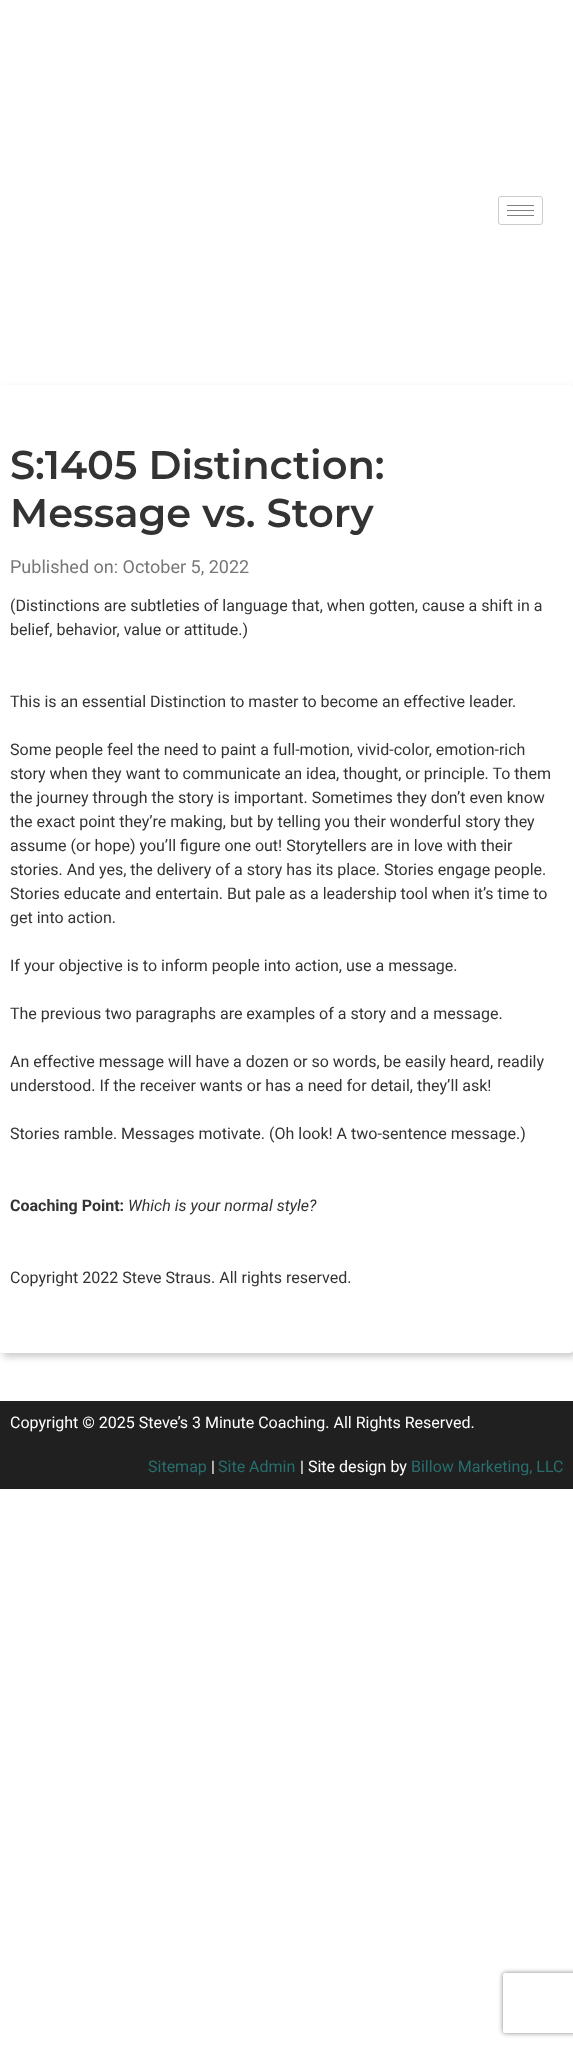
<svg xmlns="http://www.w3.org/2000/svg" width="573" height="2047">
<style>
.a{font:600 40px Montserrat;fill:#333}
.b{font:18px Roboto;fill:#777}
.c{font:16px Roboto;fill:#333}
.d{font:bold 16px Roboto;fill:#333}
.e{font:italic 16px Roboto;fill:#333}
.f{font:16px Roboto;fill:#fff}
.g{font:16px Roboto;fill:#286e6e}
</style>
<defs>
<clipPath id="clip1"><path d="M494 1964h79v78h-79zm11 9h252c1 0 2 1 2 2v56c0 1-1 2-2 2h-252c-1 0-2-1-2-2v-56c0-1 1-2 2-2z" clip-rule="evenodd"/></clipPath>
</defs>
<rect width="100%" height="100%" fill="#fff"/>
<rect fill="none" stroke="#ccc" x="498.5" y="196.5" width="44" height="28" rx="2.5"/>
<path fill="#808080" d="M507 205h27v1H507z"/>
<path fill="#808080" d="M507 210h27v1H507z"/>
<path fill="#808080" d="M507 215h27v1H507z"/>
<rect fill="#ccc" filter="blur(3.5px)" x="3" y="389" width="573" height="968" rx="3"/>
<rect fill="#fff" y="385" width="573" height="968" rx="3"/>
<path fill="#202020" d="M0 1401h573v88H0z"/>
<g clip-path="url(#clip1)">
<rect fill="#808080" filter="blur(2.5px)" x="503" y="1973" width="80" height="60" rx="2"/>
</g>
<text class="a" x="10" y="479">S:1405 Distinction:</text>
<text class="a" x="10" y="527">Message vs. Story</text>
<text class="b" x="10" y="573">Published on: October 5, 2022</text>
<text class="c" x="10" y="611">(Distinctions are subtleties of language that, when gotten, cause a shift in a</text>
<text class="c" x="10" y="635">belief, behavior, value or attitude.)</text>
<text class="c" x="10" y="707">This is an essential Distinction to master to become an effective leader.</text>
<text class="c" x="10" y="755">Some people feel the need to paint a full-motion, vivid-color, emotion-rich</text>
<text class="c" x="10" y="779">story when they want to communicate an idea, thought, or principle. To them</text>
<text class="c" x="10" y="803">the journey through the story is important. Sometimes they don’t even know</text>
<text class="c" x="10" y="827">the exact point they’re making, but by telling you their wonderful story they</text>
<text class="c" x="10" y="851">assume (or hope) you’ll figure one out! Storytellers are in love with their</text>
<text class="c" x="10" y="875">stories. And yes, the delivery of a story has its place. Stories engage people.</text>
<text class="c" x="10" y="899">Stories educate and entertain. But pale as a leadership tool when it’s time to</text>
<text class="c" x="10" y="923">get into action.</text>
<text class="c" x="10" y="971">If your objective is to inform people into action, use a message.</text>
<text class="c" x="10" y="1019">The previous two paragraphs are examples of a story and a message.</text>
<text class="c" x="10" y="1067">An effective message will have a dozen or so words, be easily heard, readily</text>
<text class="c" x="10" y="1091">understood. If the receiver wants or has a need for detail, they’ll ask!</text>
<text class="c" x="10" y="1139">Stories ramble. Messages motivate. (Oh look! A two-sentence message.)</text>
<text class="d" x="10" y="1211">Coaching Point:</text>
<text class="e" x="128" y="1211">Which is your normal style?</text>
<text class="c" x="10" y="1283">Copyright 2022 Steve Straus. All rights reserved.</text>
<text class="f" x="10" y="1428">Copyright © 2025 Steve’s 3 Minute Coaching. All Rights Reserved.</text>
<text class="g" x="148" y="1472">Sitemap</text>
<text class="f" x="211" y="1472">|</text>
<text class="g" x="218" y="1472">Site Admin</text>
<text class="f" x="300" y="1472">| Site design by</text>
<text class="g" x="411" y="1472">Billow Marketing, LLC</text>
</svg>
